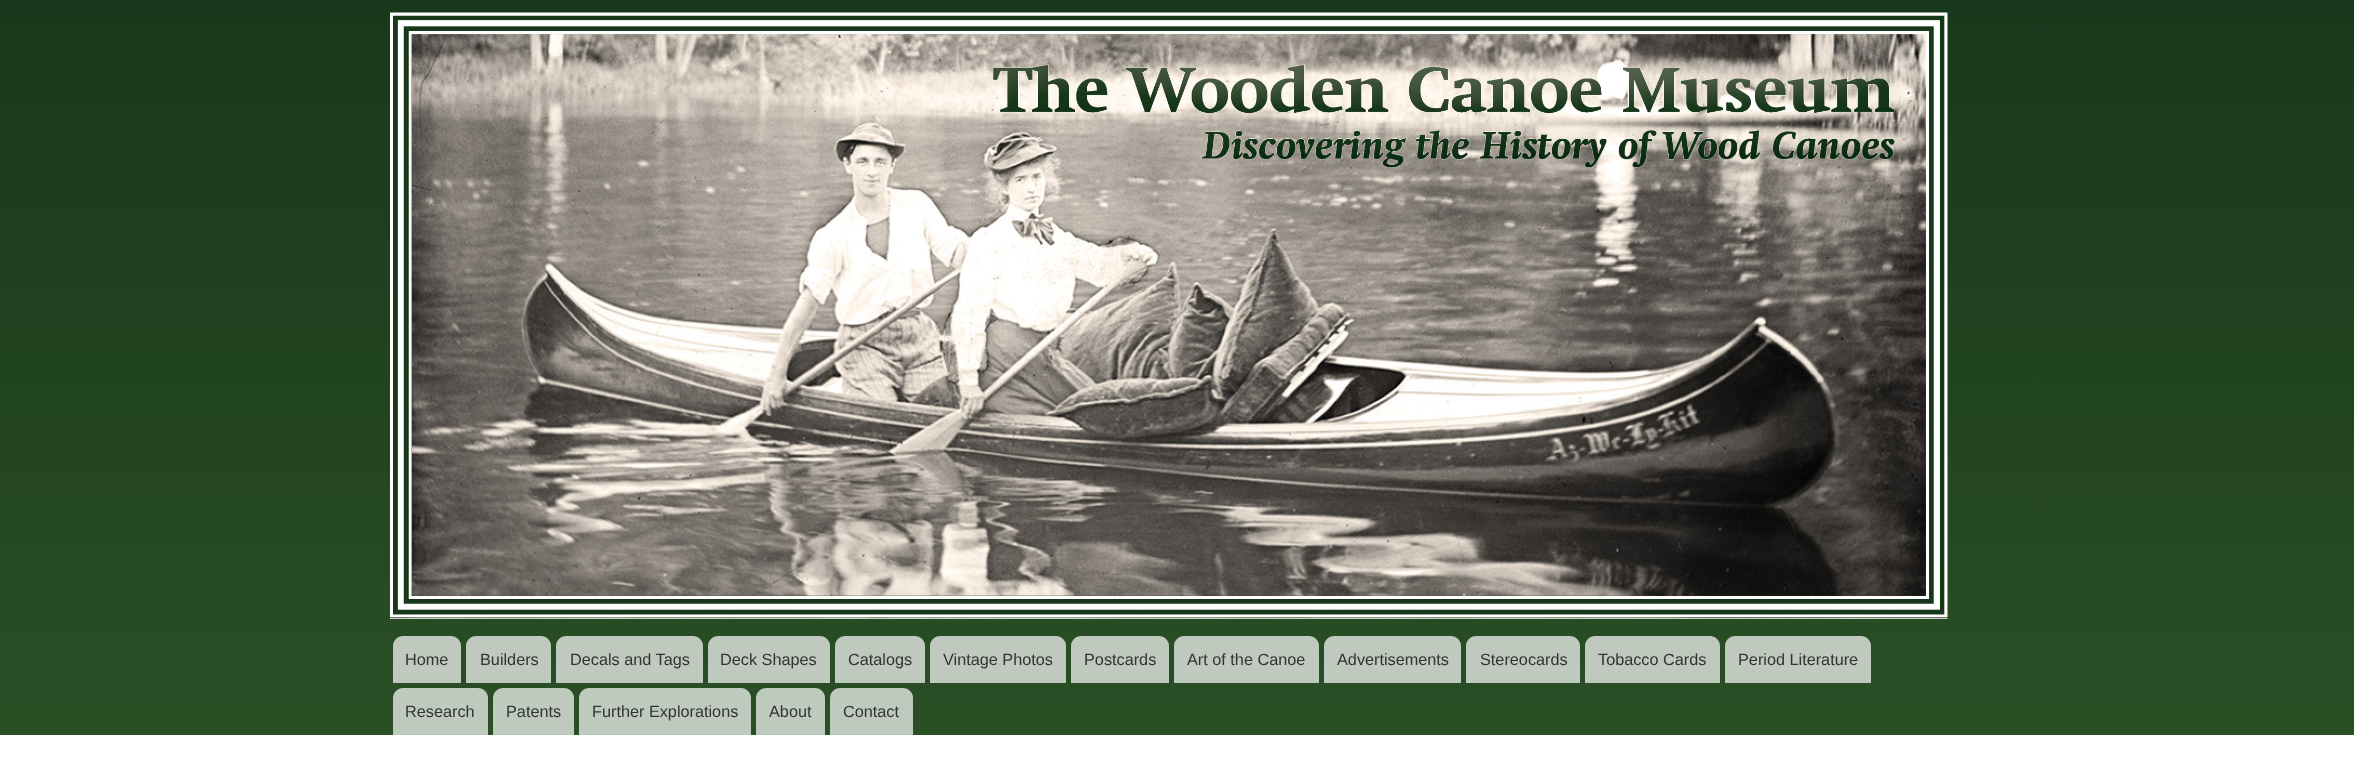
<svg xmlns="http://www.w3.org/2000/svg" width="2354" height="774">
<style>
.a{font:16.25px Liberation Sans;fill:#333}
</style>
<defs>
<linearGradient id="g1" gradientUnits="userSpaceOnUse" x1="1178" y1="0" x2="1178" y2="735"><stop offset="0" stop-color="#18381b"/><stop offset="1" stop-color="#2a4f25"/></linearGradient>
</defs>
<rect width="100%" height="100%" fill="#fff"/>
<path fill="url(#g1)" d="M0 0h2354v735H0z"/>
<image href="1.png" x="390" y="12" width="1558" height="607"/>
<path fill="#bfc9bd" d="M403 636h48c5.5 0 10 4.5 10 10v37h-68v-37c0-5.5 4.5-10 10-10z"/>
<path fill="#bfc9bd" d="M476 636h65c5.5 0 10 4.5 10 10v37h-85v-37c0-5.5 4.5-10 10-10z"/>
<path fill="#bfc9bd" d="M566 636h127c5.5 0 10 4.5 10 10v37h-147v-37c0-5.5 4.5-10 10-10z"/>
<path fill="#bfc9bd" d="M718 636h102c5.5 0 10 4.5 10 10v37h-122v-37c0-5.5 4.5-10 10-10z"/>
<path fill="#bfc9bd" d="M845 636h70c5.5 0 10 4.5 10 10v37h-90v-37c0-5.5 4.5-10 10-10z"/>
<path fill="#bfc9bd" d="M940 636h116c5.5 0 10 4.5 10 10v37h-136v-37c0-5.5 4.5-10 10-10z"/>
<path fill="#bfc9bd" d="M1081 636h78c5.5 0 10 4.5 10 10v37h-98v-37c0-5.5 4.5-10 10-10z"/>
<path fill="#bfc9bd" d="M1184 636h125c5.5 0 10 4.5 10 10v37h-145v-37c0-5.5 4.5-10 10-10z"/>
<path fill="#bfc9bd" d="M1334 636h117c5.5 0 10 4.5 10 10v37h-137v-37c0-5.5 4.5-10 10-10z"/>
<path fill="#bfc9bd" d="M1476 636h94c5.5 0 10 4.5 10 10v37h-114v-37c0-5.5 4.5-10 10-10z"/>
<path fill="#bfc9bd" d="M1595 636h115c5.5 0 10 4.5 10 10v37h-135v-37c0-5.5 4.5-10 10-10z"/>
<path fill="#bfc9bd" d="M1735 636h126c5.5 0 10 4.5 10 10v37h-146v-37c0-5.5 4.5-10 10-10z"/>
<path fill="#bfcabe" d="M403 688h75c5.5 0 10 4.5 10 10v37h-95v-37c0-5.5 4.5-10 10-10z"/>
<path fill="#bfcabe" d="M503 688h61c5.5 0 10 4.5 10 10v37h-81v-37c0-5.5 4.5-10 10-10z"/>
<path fill="#bfcabe" d="M589 688h152c5.5 0 10 4.5 10 10v37h-172v-37c0-5.5 4.5-10 10-10z"/>
<path fill="#bfcabe" d="M766 688h49c5.5 0 10 4.5 10 10v37h-69v-37c0-5.5 4.5-10 10-10z"/>
<path fill="#bfcabe" d="M840 688h63c5.5 0 10 4.5 10 10v37h-83v-37c0-5.5 4.5-10 10-10z"/>
<text class="a" x="405" y="665">Home</text>
<text class="a" x="480" y="665">Builders</text>
<text class="a" x="570" y="665">Decals and Tags</text>
<text class="a" x="720" y="665">Deck Shapes</text>
<text class="a" x="848" y="665">Catalogs</text>
<text class="a" x="943" y="665">Vintage Photos</text>
<text class="a" x="1084" y="665">Postcards</text>
<text class="a" x="1187" y="665">Art of the Canoe</text>
<text class="a" x="1337" y="665">Advertisements</text>
<text class="a" x="1480" y="665">Stereocards</text>
<text class="a" x="1598" y="665">Tobacco Cards</text>
<text class="a" x="1738" y="665">Period Literature</text>
<text class="a" x="405" y="717">Research</text>
<text class="a" x="506" y="717">Patents</text>
<text class="a" x="592" y="717">Further Explorations</text>
<text class="a" x="769" y="717">About</text>
<text class="a" x="843" y="717">Contact</text>
</svg>
